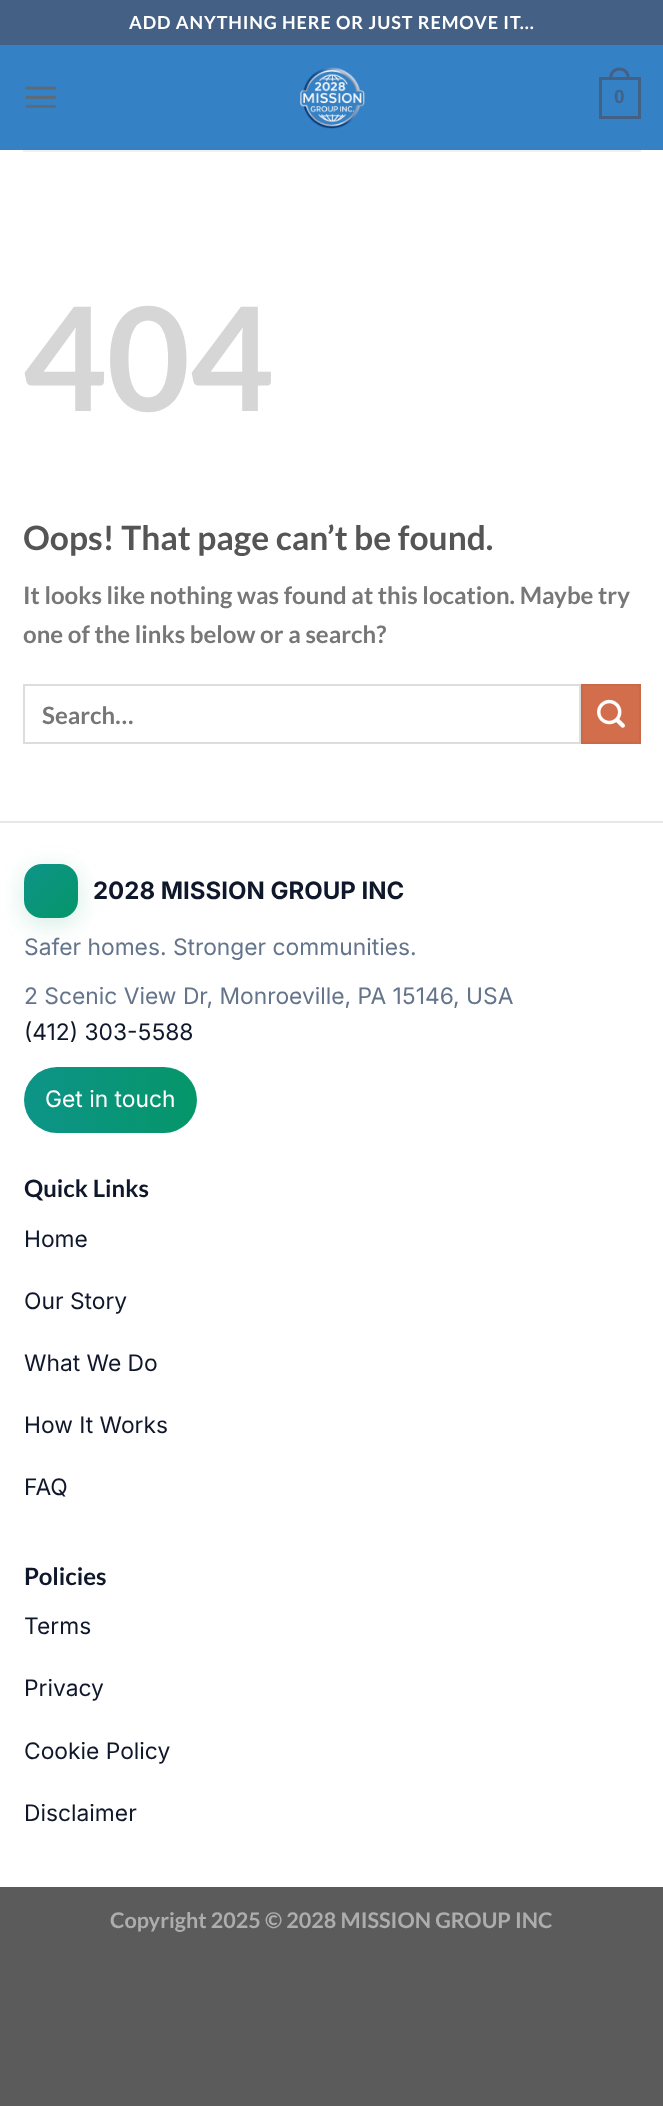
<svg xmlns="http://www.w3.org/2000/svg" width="663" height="2106">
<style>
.a{font:bold 18px Lato;letter-spacing:0.9px;fill:#fff}
.b{font:bold 19px Liberation Sans;fill:#446084}
.c{font:bold 144px Lato;fill:#d6d6d6}
.d{font:bold 33.6px Lato;fill:#555}
.e{font:bold 24px Lato;fill:#777}
.f{font:bold 24px Inter;fill:#0f172a}
.g{font:22.8px Inter;fill:#64748b}
.h{font:22.8px Inter;fill:#0f172a}
.i{font:22.8px Inter;fill:#fff}
.j{font:bold 24px Lato;fill:#0f172a}
.k{font:bold 21.6px Lato;fill:#adadad}
</style>
<defs>
<linearGradient id="g1" gradientUnits="userSpaceOnUse" x1="24" y1="864" x2="78" y2="918"><stop offset="0" stop-color="#0d9488"/><stop offset="1" stop-color="#059669"/></linearGradient>
<linearGradient id="g2" gradientUnits="userSpaceOnUse" x1="24" y1="1100" x2="197" y2="1100"><stop offset="0" stop-color="#0d9488"/><stop offset="1" stop-color="#059669"/></linearGradient>
</defs>
<rect width="100%" height="100%" fill="#5b5b5b"/>
<path fill="#fff" d="M0 150h663v1737H0z"/>
<path fill="#446084" d="M0 0h663v45H0z"/>
<path fill="#3581c5" d="M0 45h663v105H0z"/>
<image href="1.png" x="25" y="86" width="31" height="22"/>
<image href="2.png" x="300" y="67" width="65" height="62"/>
<path fill="none" stroke="#446084" stroke-width="3" d="M600.5 78.5h39v39H600.5z"/>
<path fill="#446084" fill-rule="evenodd" d="M619.5 67.5c7 0 10.5 5.5 10.5 12h-21c0-6.5 3.5-12 10.5-12zm0 3c5.5 0 7.5 4.5 7.5 9h-15c0-4.5 2-9 7.5-9z"/>
<path fill="#f1f1f1" d="M23 150h618v2H23z"/>
<path fill="none" stroke="#ddd" stroke-width="2" d="M24 685h556v58H24z"/>
<path fill="#d26e4b" stroke="#c86947" stroke-width="2" d="M582 685h58v58H582z"/>
<image href="3.png" x="597" y="699" width="28" height="29"/>
<path fill="#e5e7eb" d="M0 821h663v2H0z"/>
<rect fill="#0596692e" filter="blur(12px)" x="24" y="870" width="54" height="54" rx="18"/>
<rect fill="url(#g1)" x="24" y="864" width="54" height="54" rx="18"/>
<rect fill="url(#g2)" x="24" y="1067" width="173" height="66" rx="33"/>
<text class="a" x="129" y="29">ADD ANYTHING HERE OR JUST REMOVE IT...</text>
<text class="b" x="614" y="103">0</text>
<text class="c" x="23" y="411">404</text>
<text class="d" x="23" y="550">Oops! That page can’t be found.</text>
<text class="e" x="23" y="604">It looks like nothing was found at this location. Maybe try</text>
<text class="e" x="23" y="643">one of the links below or a search?</text>
<text class="e" x="42" y="724">Search…</text>
<text class="f" x="93" y="899">2028 MISSION GROUP INC</text>
<text class="g" x="24" y="955">Safer homes. Stronger communities.</text>
<text class="g" x="24" y="1004">2 Scenic View Dr, Monroeville, PA 15146, USA</text>
<text class="h" x="24" y="1040">(412) 303-5588</text>
<text class="i" x="45" y="1107">Get in touch</text>
<text class="j" x="24" y="1197">Quick Links</text>
<text class="h" x="24" y="1247">Home</text>
<text class="h" x="24" y="1309">Our Story</text>
<text class="h" x="24" y="1371">What We Do</text>
<text class="h" x="24" y="1433">How It Works</text>
<text class="h" x="24" y="1495">FAQ</text>
<text class="j" x="24" y="1585">Policies</text>
<text class="h" x="24" y="1634">Terms</text>
<text class="h" x="24" y="1696">Privacy</text>
<text class="h" x="24" y="1759">Cookie Policy</text>
<text class="h" x="24" y="1821">Disclaimer</text>
<text class="k" x="110" y="1928">Copyright 2025 © 2028 MISSION GROUP INC</text>
</svg>
